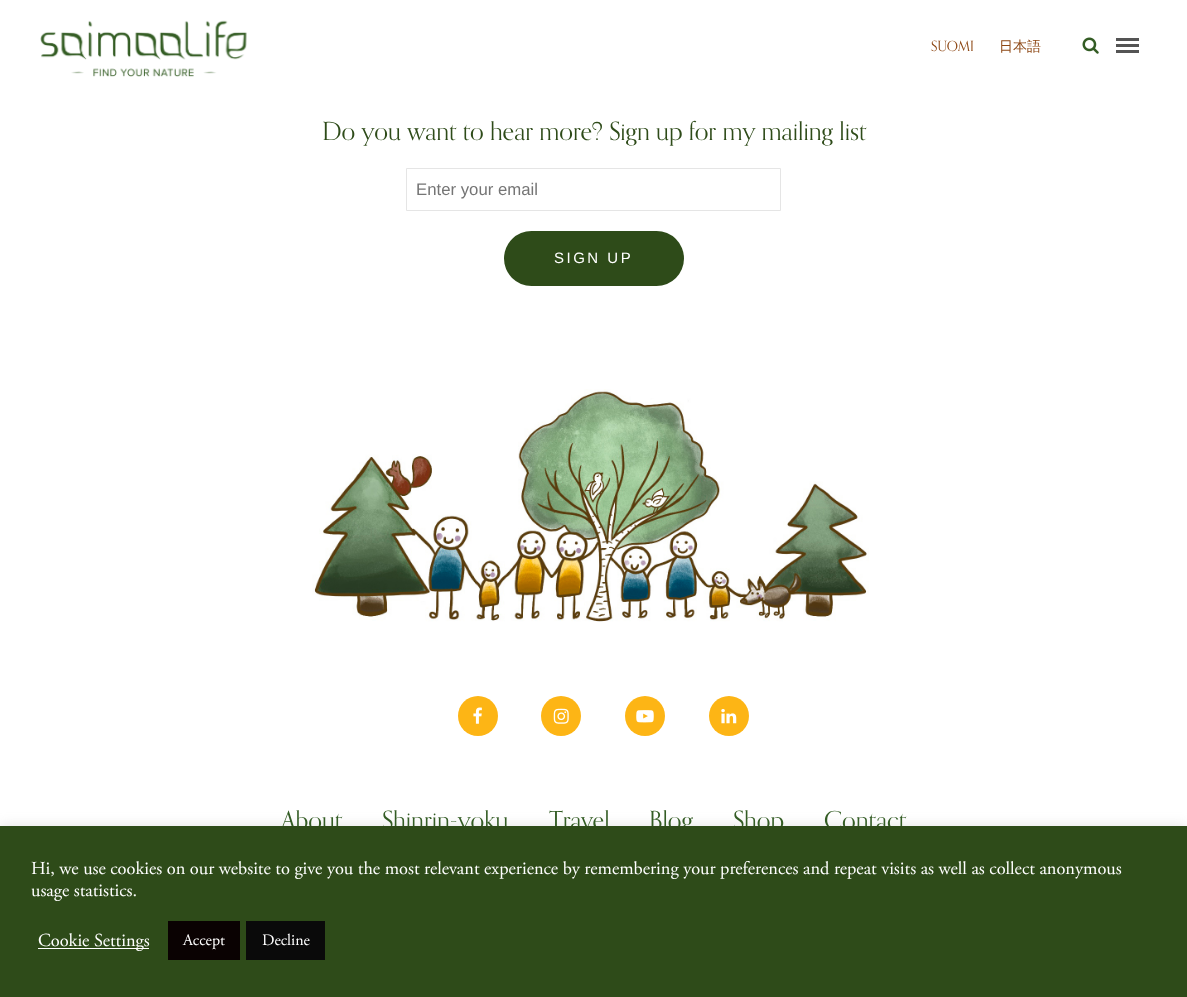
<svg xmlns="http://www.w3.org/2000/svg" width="1187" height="997">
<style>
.a{font:14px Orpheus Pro;fill:#8d4714}
.b{font:500 14px WenQuanYi Zen Hei;fill:#8d4714}
.c{font:25px Orpheus Pro;fill:#2e4b19}
.d{font:16.75px Liberation Sans;fill:#757575}
.e{font:15px Liberation Sans;letter-spacing:2.5px;fill:#fff}
.f{font:25px Orpheus Pro;fill:#335c24}
.g{font:18.33px Adobe Garamond;fill:#fff}
.h{font:16px Adobe Garamond;fill:#fff}
</style>
<rect width="100%" height="100%" fill="#fff"/>
<image href="1.png" x="40" y="20" width="207" height="57"/>
<image href="2.png" x="1082" y="37" width="17" height="17"/>
<path fill="#545454" d="M1116 38h23v3H1116z"/>
<path fill="#545454" d="M1116 44h23v3H1116z"/>
<path fill="#545454" d="M1116 50h23v3H1116z"/>
<path fill="none" stroke="#e5e5e5" d="M406.5 168.5h374v42H406.5z"/>
<rect fill="#2e4b19" x="504" y="231" width="180" height="55" rx="27.5"/>
<image href="3.png" x="312" y="389" width="557" height="233"/>
<circle fill="#fdb515" cx="478" cy="716" r="20"/>
<image href="4.png" x="473" y="707" width="9" height="17"/>
<circle fill="#fdb515" cx="561" cy="716" r="20"/>
<image href="5.png" x="553" y="708" width="16" height="16"/>
<circle fill="#fdb515" cx="645" cy="716" r="20"/>
<image href="6.png" x="636" y="710" width="18" height="13"/>
<circle fill="#fdb515" cx="729" cy="716" r="20"/>
<image href="7.png" x="721" y="709" width="16" height="15"/>
<path fill="#acabab4d" filter="blur(6px)" d="M0 825h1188v171H0z"/>
<text class="a" x="931" y="51">SUOMI</text>
<text class="b" x="999" y="51">日本語</text>
<text class="c" x="322" y="140">Do you want to hear more? Sign up for my mailing list</text>
<text class="d" x="416" y="195">Enter your email</text>
<text class="e" x="554" y="263">SIGN UP</text>
<text class="f" x="281" y="829">About</text>
<text class="f" x="382" y="829">Shinrin-yoku</text>
<text class="f" x="549" y="829">Travel</text>
<text class="f" x="649" y="829">Blog</text>
<text class="f" x="733" y="829">Shop</text>
<text class="f" x="824" y="829">Contact</text>
<path fill="#2e4b19" d="M0 826h1187v171H0z"/>
<text class="g" x="31" y="874">Hi, we use cookies on our website to give you the most relevant experience by remembering your preferences and repeat visits as well as collect anonymous</text>
<text class="g" x="31" y="896">usage statistics.</text>
<path fill="#fff" d="M38 948h111v1H38z"/>
<text class="g" x="38" y="946">Cookie Settings</text>
<path fill="#0a0202" d="M168 921h72v39H168z"/>
<text class="h" x="183" y="945">Accept</text>
<path fill="#0a0a0a" d="M246 921h79v39H246z"/>
<text class="h" x="262" y="945">Decline</text>
</svg>
